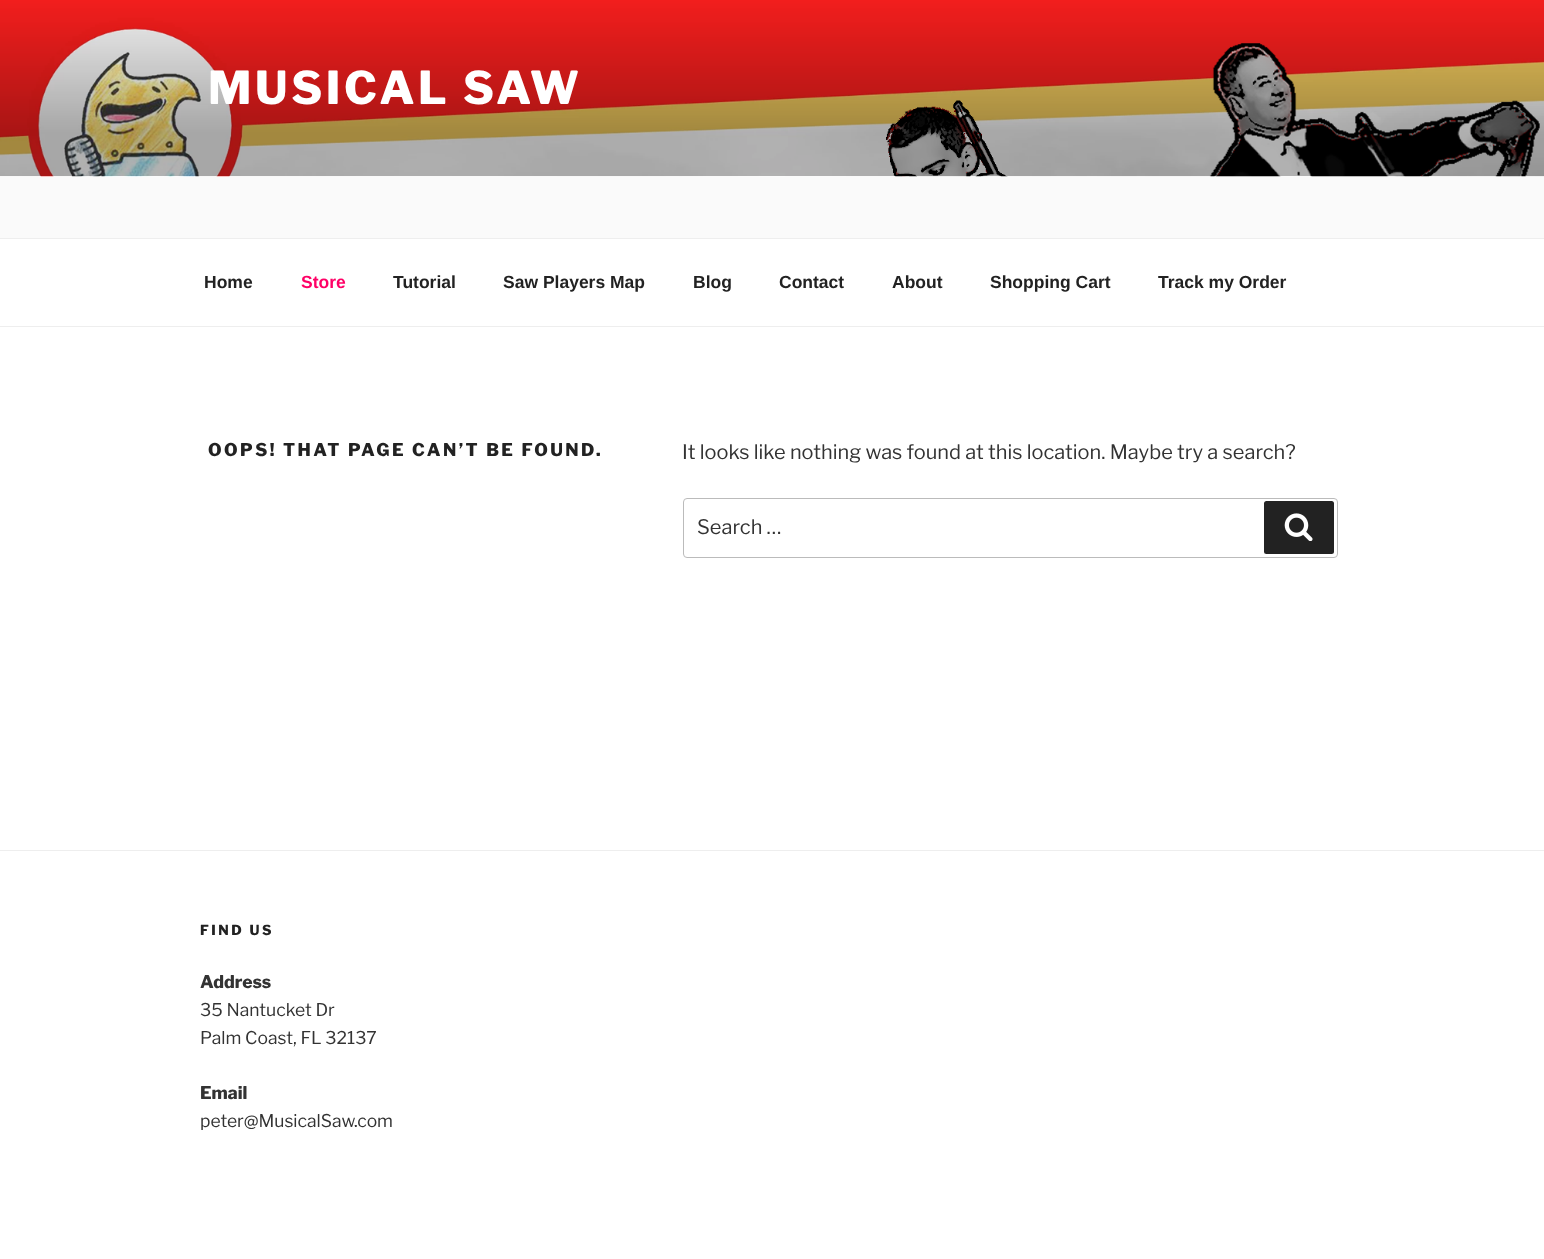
<svg xmlns="http://www.w3.org/2000/svg" width="1544" height="1259">
<style>
.a{font:100 45px Libre Franklin;letter-spacing:3.6px;fill:#fff}
.b{font:bold 17.5px Liberation Sans;fill:#222}
.c{font:bold 17.5px Liberation Sans;fill:#f06}
.d{font:100 17.5px Libre Franklin;letter-spacing:2.45px;fill:#222}
.e{font:100 20px 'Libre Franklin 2';fill:#333}
.f{font:100 13.75px Libre Franklin;letter-spacing:2.5px;fill:#222}
.g{font:100 17.5px Libre Franklin;fill:#333}
.h{font:100 17.5px 'Libre Franklin 2';fill:#333}
</style>
<rect width="100%" height="100%" fill="#fff"/>
<path fill="#fafafa" d="M0 176h1544v62H0z"/>
<image href="1.png" x="0" y="0" width="1544" height="177"/>
<path fill="#eee" d="M0 238h1544v1H0z"/>
<path fill="#eee" d="M0 326h1544v1H0z"/>
<rect fill="none" stroke="#bbb" x="683.5" y="498.5" width="654" height="59" rx="3.5"/>
<rect fill="#222" x="1264" y="501" width="70" height="53" rx="2.5"/>
<image href="2.png" x="1284" y="513" width="29" height="28"/>
<path fill="#eee" d="M0 850h1544v1H0z"/>
<text class="a" x="208" y="104">MUSICAL SAW</text>
<text class="b" x="204" y="288">Home</text>
<text class="c" x="301" y="288">Store</text>
<text class="b" x="393" y="288">Tutorial</text>
<text class="b" x="503" y="288">Saw Players Map</text>
<text class="b" x="693" y="288">Blog</text>
<text class="b" x="779" y="288">Contact</text>
<text class="b" x="892" y="288">About</text>
<text class="b" x="990" y="288">Shopping Cart</text>
<text class="b" x="1158" y="288">Track my Order</text>
<text class="d" x="208" y="456">OOPS! THAT PAGE CAN’T BE FOUND.</text>
<text class="e" x="682" y="459">It looks like nothing was found at this location. Maybe try a search?</text>
<text class="e" x="697" y="534">Search …</text>
<text class="f" x="200" y="935">FIND US</text>
<text class="g" x="200" y="988">Address</text>
<text class="h" x="200" y="1016">35 Nantucket Dr</text>
<text class="h" x="200" y="1044">Palm Coast, FL 32137</text>
<text class="g" x="200" y="1099">Email</text>
<text class="h" x="200" y="1127">peter@MusicalSaw.com</text>
</svg>
